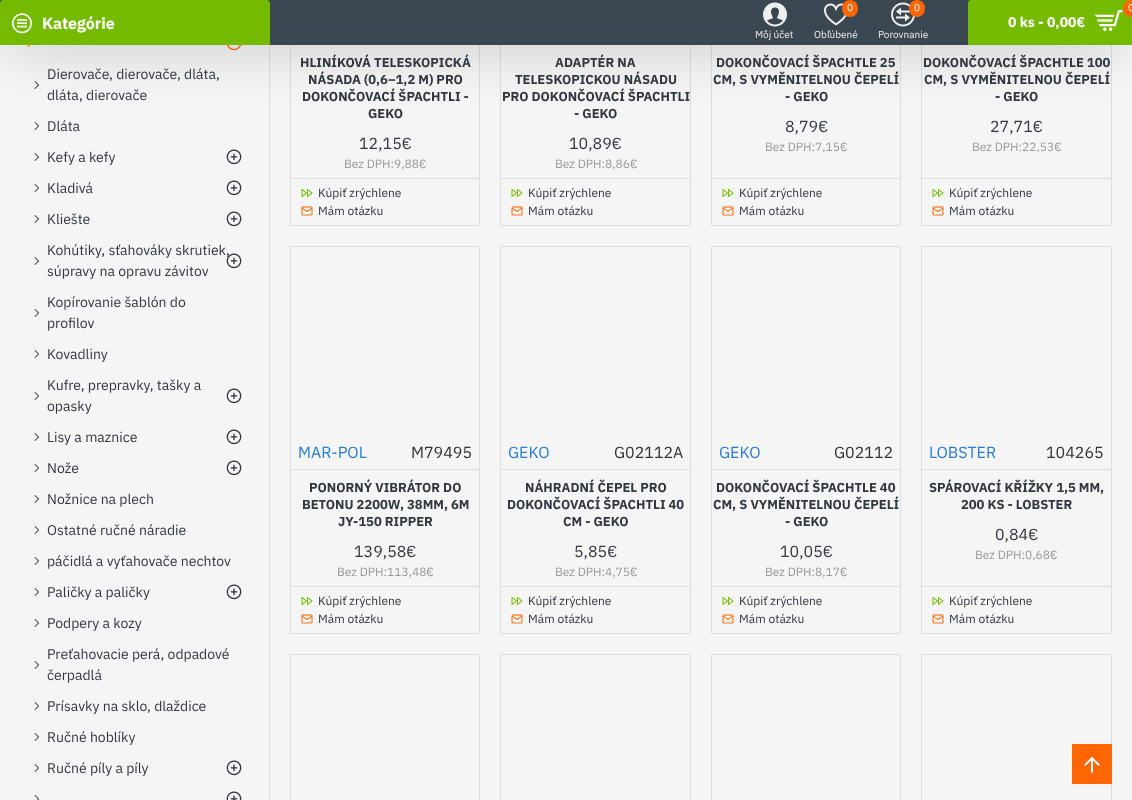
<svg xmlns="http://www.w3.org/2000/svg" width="1132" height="800">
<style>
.a{font:bold 16px IBM Plex Sans;fill:#fff}
.b{font:10px IBM Plex Sans;fill:#eee}
.c{font:10px IBM Plex Sans;fill:#fff}
.d{font:bold 14px IBM Plex Sans;fill:#fff}
.e{font:14px IBM Plex Sans;fill:#303841}
.f{font:bold 13px IBM Plex Sans;fill:#303841}
.g{font:16px IBM Plex Sans;fill:#303841}
.h{font:12px IBM Plex Sans;fill:#999}
.i{font:12px IBM Plex Sans;fill:#303841}
.j{font:16px IBM Plex Sans;fill:#277cd9}
.k{font:16px IBM Plex Sans;fill:#333}
</style>
<rect width="100%" height="100%" fill="#f5f5f5"/>
<path fill="#ddd" d="M269 45h1v755H269z"/>
<image href="6.png" x="27" y="45" width="4" height="2"/>
<image href="7.png" x="227" y="45" width="14" height="6"/>
<image href="8.png" x="34" y="81" width="5" height="8"/>
<image href="8.png" x="34" y="122" width="5" height="8"/>
<path fill="none" stroke="#ddd" d="M290.5 -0.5h189v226H290.5z"/>
<path fill="none" stroke="#ddd" d="M500.5 -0.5h190v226H500.5z"/>
<path fill="none" stroke="#ddd" d="M711.5 -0.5h189v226H711.5z"/>
<path fill="none" stroke="#ddd" d="M921.5 -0.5h190v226H921.5z"/>
<path fill="#0000004d" filter="blur(30px)" d="M10 15h1112v25H10z"/>
<path fill="#3a4750" d="M0 0h971v45H0z"/>
<path fill="#74bb00" d="M3 0h264c1.5 0 3 1.5 3 3v42h-270v-42c0-1.5 1.5-3 3-3z"/>
<image href="1.png" x="12" y="13" width="20" height="21"/>
<image href="2.png" x="763" y="2" width="24" height="25"/>
<image href="3.png" x="824" y="3" width="23" height="23"/>
<rect fill="#ff6601" x="842" width="16" height="17" rx="8"/>
<image href="4.png" x="891" y="2" width="24" height="25"/>
<rect fill="#ff6601" x="909" width="16" height="17" rx="8"/>
<path fill="#74bb00" d="M971 0h161v45h-164v-42c0-1.5 1.5-3 3-3z"/>
<rect fill="#ff6601" x="1123" width="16" height="17" rx="8"/>
<image href="5.png" x="1095" y="10" width="28" height="21"/>
<image href="8.png" x="34" y="153" width="5" height="8"/>
<image href="9.png" x="226" y="149" width="16" height="16"/>
<image href="8.png" x="34" y="184" width="5" height="8"/>
<image href="9.png" x="226" y="180" width="16" height="16"/>
<image href="8.png" x="34" y="215" width="5" height="8"/>
<image href="9.png" x="226" y="211" width="16" height="16"/>
<image href="8.png" x="34" y="257" width="5" height="8"/>
<image href="8.png" x="34" y="309" width="5" height="8"/>
<image href="8.png" x="34" y="350" width="5" height="8"/>
<image href="8.png" x="34" y="392" width="5" height="8"/>
<image href="9.png" x="226" y="388" width="16" height="16"/>
<image href="8.png" x="34" y="433" width="5" height="8"/>
<image href="9.png" x="226" y="429" width="16" height="16"/>
<image href="8.png" x="34" y="464" width="5" height="8"/>
<image href="9.png" x="226" y="460" width="16" height="16"/>
<image href="8.png" x="34" y="495" width="5" height="8"/>
<image href="8.png" x="34" y="526" width="5" height="8"/>
<image href="8.png" x="34" y="557" width="5" height="8"/>
<image href="8.png" x="34" y="588" width="5" height="8"/>
<image href="9.png" x="226" y="584" width="16" height="16"/>
<image href="8.png" x="34" y="619" width="5" height="8"/>
<image href="8.png" x="34" y="661" width="5" height="8"/>
<image href="8.png" x="34" y="702" width="5" height="8"/>
<image href="8.png" x="34" y="733" width="5" height="8"/>
<image href="8.png" x="34" y="764" width="5" height="8"/>
<image href="9.png" x="226" y="760" width="16" height="16"/>
<image href="11.png" x="34" y="795" width="5" height="5"/>
<image href="12.png" x="226" y="791" width="16" height="9"/>
<path fill="#ddd" d="M291 178h188v1H291z"/>
<image href="13.png" x="301" y="189" width="12" height="8"/>
<image href="14.png" x="301" y="206" width="12" height="10"/>
<path fill="#ddd" d="M501 178h189v1H501z"/>
<image href="13.png" x="511" y="189" width="12" height="8"/>
<image href="14.png" x="511" y="206" width="12" height="10"/>
<path fill="#ddd" d="M712 178h188v1H712z"/>
<image href="13.png" x="722" y="189" width="12" height="8"/>
<image href="14.png" x="722" y="206" width="12" height="10"/>
<path fill="#ddd" d="M922 178h189v1H922z"/>
<image href="13.png" x="932" y="189" width="12" height="8"/>
<image href="14.png" x="932" y="206" width="12" height="10"/>
<path fill="none" stroke="#ddd" d="M290.5 246.5h189v387H290.5z"/>
<path fill="#ddd" d="M291 469h188v1H291z"/>
<path fill="#ddd" d="M291 586h188v1H291z"/>
<image href="13.png" x="301" y="597" width="12" height="8"/>
<image href="14.png" x="301" y="614" width="12" height="10"/>
<path fill="none" stroke="#ddd" d="M500.5 246.5h190v387H500.5z"/>
<path fill="#ddd" d="M501 469h189v1H501z"/>
<path fill="#ddd" d="M501 586h189v1H501z"/>
<image href="13.png" x="511" y="597" width="12" height="8"/>
<image href="14.png" x="511" y="614" width="12" height="10"/>
<path fill="none" stroke="#ddd" d="M711.5 246.5h189v387H711.5z"/>
<path fill="#ddd" d="M712 469h188v1H712z"/>
<path fill="#ddd" d="M712 586h188v1H712z"/>
<image href="13.png" x="722" y="597" width="12" height="8"/>
<image href="14.png" x="722" y="614" width="12" height="10"/>
<path fill="none" stroke="#ddd" d="M921.5 246.5h190v387H921.5z"/>
<path fill="#ddd" d="M922 469h189v1H922z"/>
<path fill="#ddd" d="M922 586h189v1H922z"/>
<image href="13.png" x="932" y="597" width="12" height="8"/>
<image href="14.png" x="932" y="614" width="12" height="10"/>
<path fill="none" stroke="#ddd" d="M290.5 654.5h189v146H290.5z"/>
<path fill="none" stroke="#ddd" d="M500.5 654.5h190v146H500.5z"/>
<path fill="none" stroke="#ddd" d="M711.5 654.5h189v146H711.5z"/>
<path fill="none" stroke="#ddd" d="M921.5 654.5h190v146H921.5z"/>
<path fill="#ff6601" d="M1072 744h40v40H1072z"/>
<image href="15.png" x="1084" y="756" width="16" height="17"/>
<text class="a" x="42" y="29">Kategórie</text>
<text class="b" x="755" y="38">Môj účet</text>
<text class="c" x="847" y="11">0</text>
<text class="b" x="814" y="38">Obľúbené</text>
<text class="c" x="914" y="11">0</text>
<text class="b" x="878" y="38">Porovnanie</text>
<text class="c" x="1128" y="11">0</text>
<text class="d" x="1008" y="27">0 ks - 0,00€</text>
<text class="e" x="47" y="79">Dierovače, dierovače, dláta,</text>
<text class="e" x="47" y="100">dláta, dierovače</text>
<text class="e" x="47" y="131">Dláta</text>
<text class="e" x="47" y="162">Kefy a kefy</text>
<text class="e" x="47" y="193">Kladivá</text>
<text class="e" x="47" y="224">Kliešte</text>
<text class="e" x="47" y="255">Kohútiky, sťahováky skrutiek,</text>
<text class="e" x="47" y="276">súpravy na opravu závitov</text>
<image href="10.png" x="226" y="253" width="16" height="16"/>
<text class="e" x="47" y="307">Kopírovanie šablón do</text>
<text class="e" x="47" y="328">profilov</text>
<text class="e" x="47" y="359">Kovadliny</text>
<text class="e" x="47" y="390">Kufre, prepravky, tašky a</text>
<text class="e" x="47" y="411">opasky</text>
<text class="e" x="47" y="442">Lisy a maznice</text>
<text class="e" x="47" y="473">Nože</text>
<text class="e" x="47" y="504">Nožnice na plech</text>
<text class="e" x="47" y="535">Ostatné ručné náradie</text>
<text class="e" x="47" y="566">páčidlá a vyťahovače nechtov</text>
<text class="e" x="47" y="597">Paličky a paličky</text>
<text class="e" x="47" y="628">Podpery a kozy</text>
<text class="e" x="47" y="659">Preťahovacie perá, odpadové</text>
<text class="e" x="47" y="680">čerpadlá</text>
<text class="e" x="47" y="711">Prísavky na sklo, dlaždice</text>
<text class="e" x="47" y="742">Ručné hoblíky</text>
<text class="e" x="47" y="773">Ručné píly a píly</text>
<text class="f" x="300" y="67">HLINÍKOVÁ TELESKOPICKÁ</text>
<text class="f" x="308" y="84">NÁSADA (0,6–1,2 M) PRO</text>
<text class="f" x="302" y="101">DOKONČOVACÍ ŠPACHTLI -</text>
<text class="f" x="368" y="118">GEKO</text>
<text class="g" x="359" y="149">12,15€</text>
<text class="h" x="344" y="168">Bez DPH:9,88€</text>
<text class="i" x="318" y="197">Kúpiť zrýchlene</text>
<text class="i" x="318" y="215">Mám otázku</text>
<text class="f" x="555" y="67">ADAPTÉR NA</text>
<text class="f" x="515" y="84">TELESKOPICKOU NÁSADU</text>
<text class="f" x="502" y="101">PRO DOKONČOVACÍ ŠPACHTLI</text>
<text class="f" x="574" y="118">- GEKO</text>
<text class="g" x="569" y="149">10,89€</text>
<text class="h" x="555" y="168">Bez DPH:8,86€</text>
<text class="i" x="528" y="197">Kúpiť zrýchlene</text>
<text class="i" x="528" y="215">Mám otázku</text>
<text class="f" x="716" y="67">DOKONČOVACÍ ŠPACHTLE 25</text>
<text class="f" x="713" y="84">CM, S VYMĚNITELNOU ČEPELÍ</text>
<text class="f" x="785" y="101">- GEKO</text>
<text class="g" x="785" y="132">8,79€</text>
<text class="h" x="765" y="151">Bez DPH:7,15€</text>
<text class="i" x="739" y="197">Kúpiť zrýchlene</text>
<text class="i" x="739" y="215">Mám otázku</text>
<text class="f" x="923" y="67">DOKONČOVACÍ ŠPACHTLE 100</text>
<text class="f" x="924" y="84">CM, S VYMĚNITELNOU ČEPELÍ</text>
<text class="f" x="995" y="101">- GEKO</text>
<text class="g" x="990" y="132">27,71€</text>
<text class="h" x="972" y="151">Bez DPH:22,53€</text>
<text class="i" x="949" y="197">Kúpiť zrýchlene</text>
<text class="i" x="949" y="215">Mám otázku</text>
<text class="j" x="298" y="458">MAR-POL</text>
<text class="k" x="411" y="458">M79495</text>
<text class="f" x="309" y="492">PONORNÝ VIBRÁTOR DO</text>
<text class="f" x="302" y="509">BETONU 2200W, 38MM, 6M</text>
<text class="f" x="338" y="526">JY-150 RIPPER</text>
<text class="g" x="354" y="557">139,58€</text>
<text class="h" x="337" y="576">Bez DPH:113,48€</text>
<text class="i" x="318" y="605">Kúpiť zrýchlene</text>
<text class="i" x="318" y="623">Mám otázku</text>
<text class="j" x="508" y="458">GEKO</text>
<text class="k" x="614" y="458">G02112A</text>
<text class="f" x="525" y="492">NÁHRADNÍ ČEPEL PRO</text>
<text class="f" x="507" y="509">DOKONČOVACÍ ŠPACHTLI 40</text>
<text class="f" x="563" y="526">CM - GEKO</text>
<text class="g" x="574" y="557">5,85€</text>
<text class="h" x="555" y="576">Bez DPH:4,75€</text>
<text class="i" x="528" y="605">Kúpiť zrýchlene</text>
<text class="i" x="528" y="623">Mám otázku</text>
<text class="j" x="719" y="458">GEKO</text>
<text class="k" x="834" y="458">G02112</text>
<text class="f" x="716" y="492">DOKONČOVACÍ ŠPACHTLE 40</text>
<text class="f" x="713" y="509">CM, S VYMĚNITELNOU ČEPELÍ</text>
<text class="f" x="785" y="526">- GEKO</text>
<text class="g" x="780" y="557">10,05€</text>
<text class="h" x="765" y="576">Bez DPH:8,17€</text>
<text class="i" x="739" y="605">Kúpiť zrýchlene</text>
<text class="i" x="739" y="623">Mám otázku</text>
<text class="j" x="929" y="458">LOBSTER</text>
<text class="k" x="1046" y="458">104265</text>
<text class="f" x="929" y="492">SPÁROVACÍ KŘÍŽKY 1,5 MM,</text>
<text class="f" x="961" y="509">200 KS - LOBSTER</text>
<text class="g" x="995" y="540">0,84€</text>
<text class="h" x="975" y="559">Bez DPH:0,68€</text>
<text class="i" x="949" y="605">Kúpiť zrýchlene</text>
<text class="i" x="949" y="623">Mám otázku</text>
</svg>
